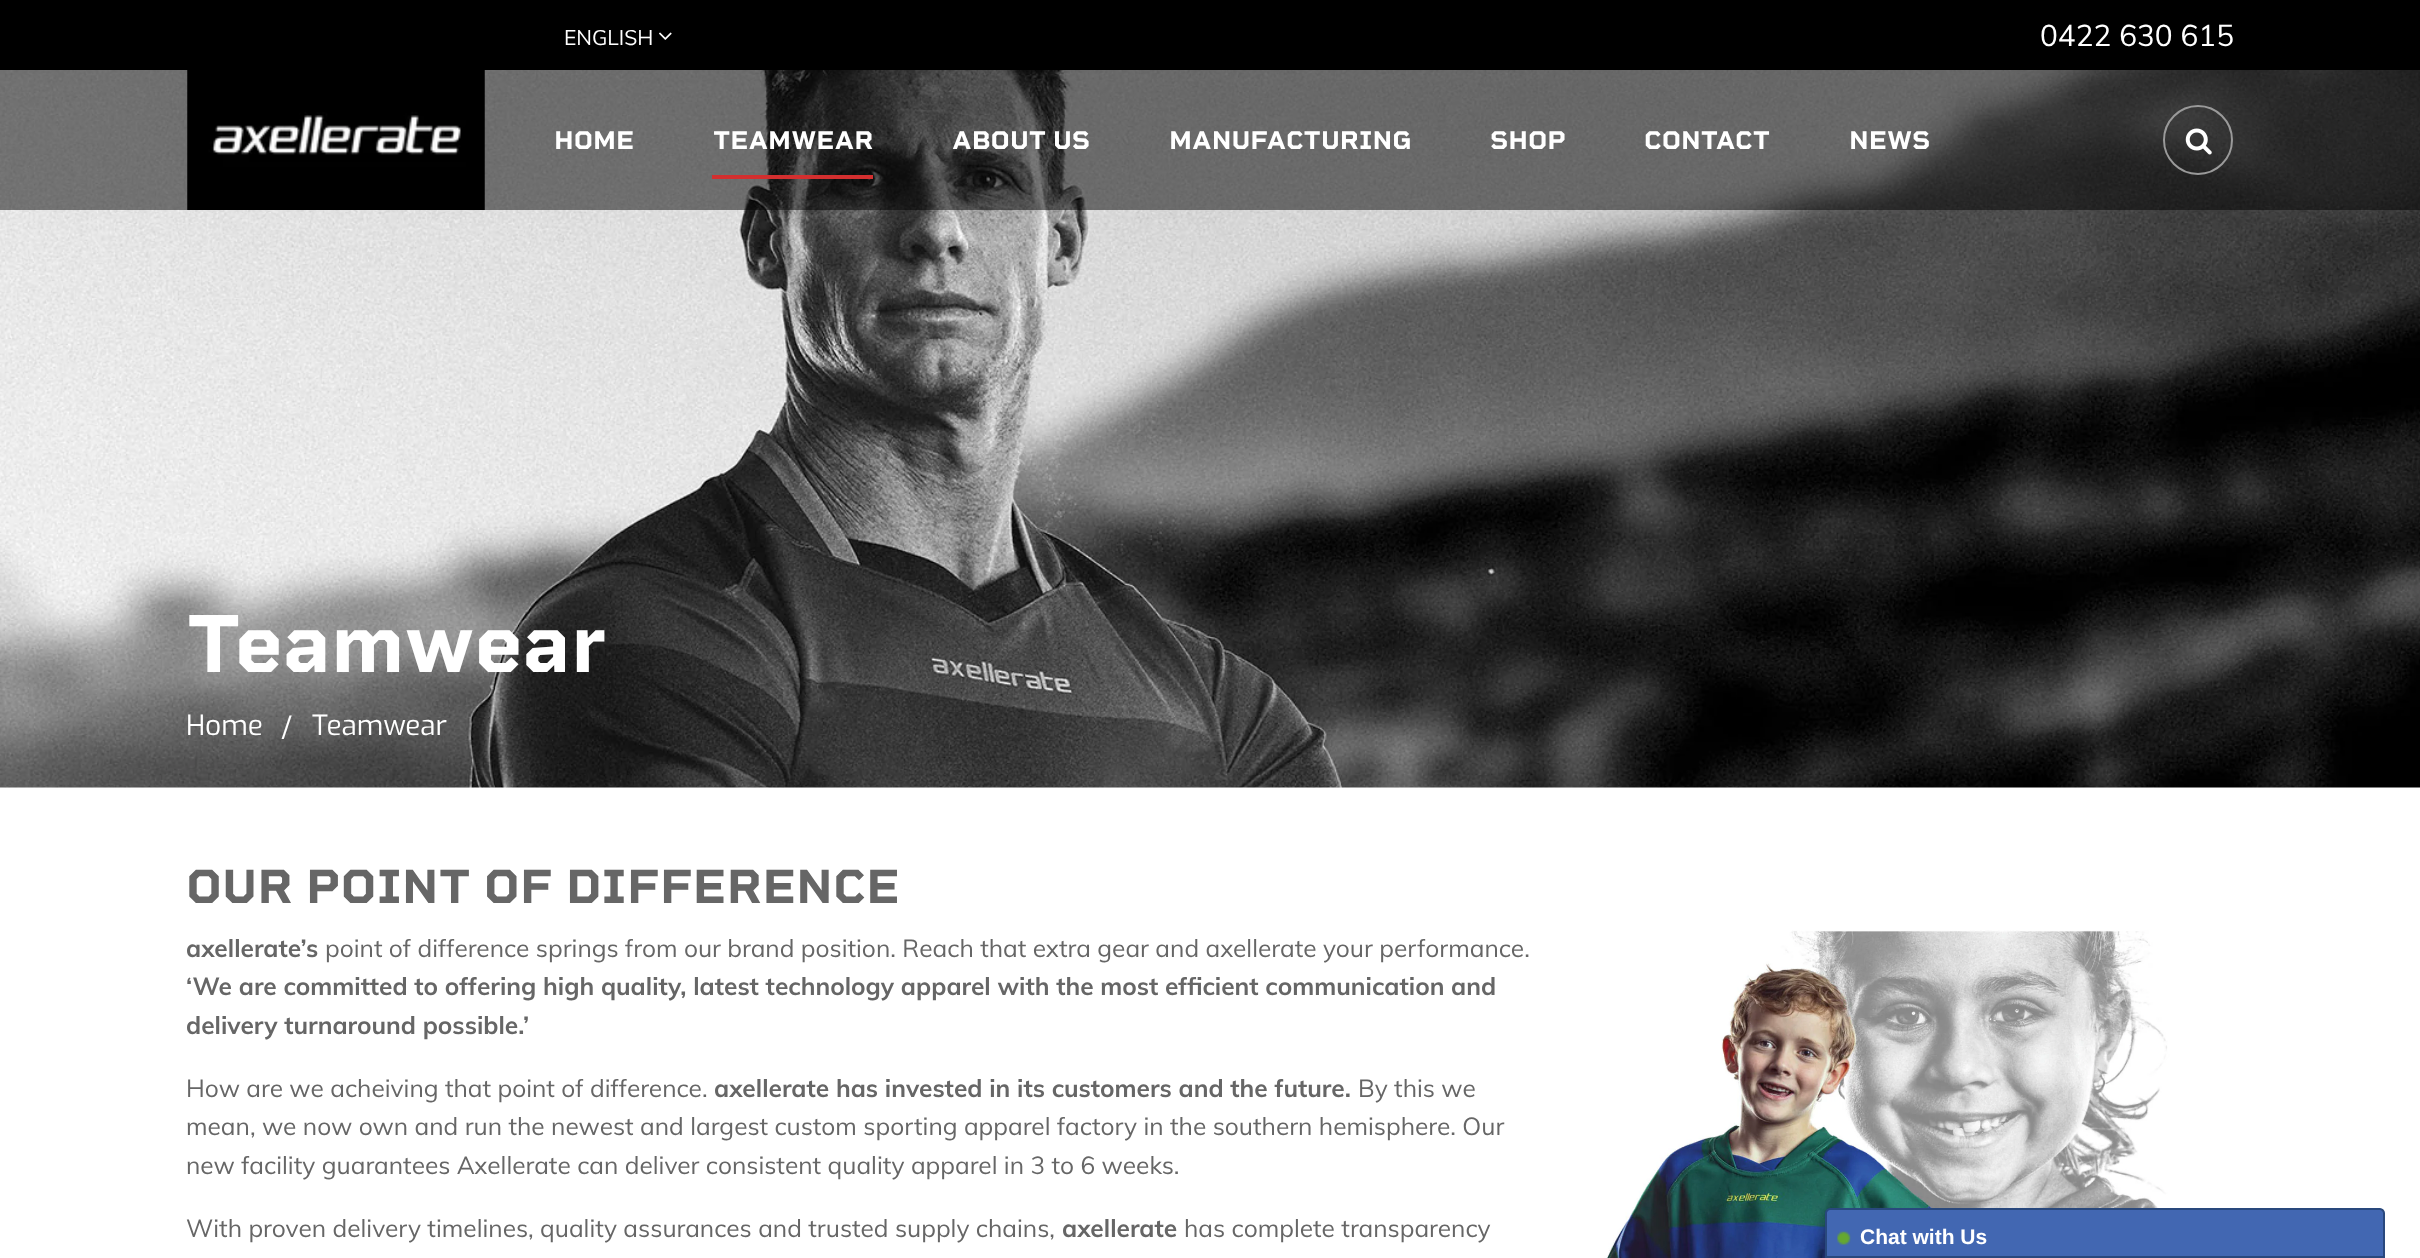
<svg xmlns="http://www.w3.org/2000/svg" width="2420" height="1258">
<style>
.a{font:21px Muli;fill:#fff}
.b{font:29.75px Muli;fill:#fff}
.c{font:bold 26.25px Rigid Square;fill:#fff}
.d{font:bold 84px Rigid Square;fill:#fff}
.e{font:28px Exo;fill:#fff}
.f{font:bold 49px Rigid Square;fill:#666}
.g{font:bold 24.5px Muli;fill:#666}
.h{font:24.5px Muli;fill:#666}
.i{font:bold 21px Liberation Sans;fill:#fff}
</style>
<rect width="100%" height="100%" fill="#fff"/>
<path fill="#000" d="M0 0h2420v70H0z"/>
<image href="1.png" x="659" y="32" width="13" height="8"/>
<image href="4.png" x="0" y="70" width="2420" height="718"/>
<path fill="#00000080" d="M0 70h2420v140H0z"/>
<image href="2.png" x="187" y="70" width="298" height="140"/>
<path fill="#d32f2f" d="M712 175h161v4H712z"/>
<circle fill="none" stroke="#9a9a9a" stroke-width="2" cx="2198" cy="140" r="34"/>
<image href="3.png" x="2185" y="128" width="27" height="27"/>
<image href="5.png" x="1604" y="930" width="618" height="328"/>
<path fill="#4267b2" stroke="#29487d" stroke-width="2" d="M1830 1209h550c2 0 4 2 4 4v44h-558v-44c0-2 2-4 4-4z"/>
<image href="6.png" x="1837" y="1231" width="14" height="14"/>
<text class="a" x="564" y="45">ENGLISH</text>
<text class="b" x="2040" y="46">0422 630 615</text>
<text class="c" x="554" y="149">HOME</text>
<text class="c" x="713" y="149">TEAMWEAR</text>
<text class="c" x="952" y="149">ABOUT US</text>
<text class="c" x="1169" y="149">MANUFACTURING</text>
<text class="c" x="1490" y="149">SHOP</text>
<text class="c" x="1644" y="149">CONTACT</text>
<text class="c" x="1849" y="149">NEWS</text>
<text class="d" x="186" y="672">Teamwear</text>
<text class="e" x="186" y="735">Home</text>
<text class="e" x="281" y="737">/</text>
<text class="e" x="312" y="735">Teamwear</text>
<text class="f" x="186" y="903">OUR POINT OF DIFFERENCE</text>
<text class="g" x="186" y="957">axellerate’s</text>
<text class="h" x="325" y="957">point of difference springs from our brand position. Reach that extra gear and axellerate your performance.</text>
<text class="g" x="186" y="995">‘We are committed to offering high quality, latest technology apparel with the most efficient communication and</text>
<text class="g" x="186" y="1034">delivery turnaround possible.’</text>
<text class="h" x="186" y="1097">How are we acheiving that point of difference.</text>
<text class="g" x="714" y="1097">axellerate has invested in its customers and the future.</text>
<text class="h" x="1358" y="1097">By this we</text>
<text class="h" x="186" y="1135">mean, we now own and run the newest and largest custom sporting apparel factory in the southern hemisphere. Our</text>
<text class="h" x="186" y="1174">new facility guarantees Axellerate can deliver consistent quality apparel in 3 to 6 weeks.</text>
<text class="h" x="186" y="1237">With proven delivery timelines, quality assurances and trusted supply chains,</text>
<text class="g" x="1062" y="1237">axellerate</text>
<text class="h" x="1184" y="1237">has complete transparency</text>
<text class="i" x="1860" y="1244">Chat with Us</text>
</svg>
